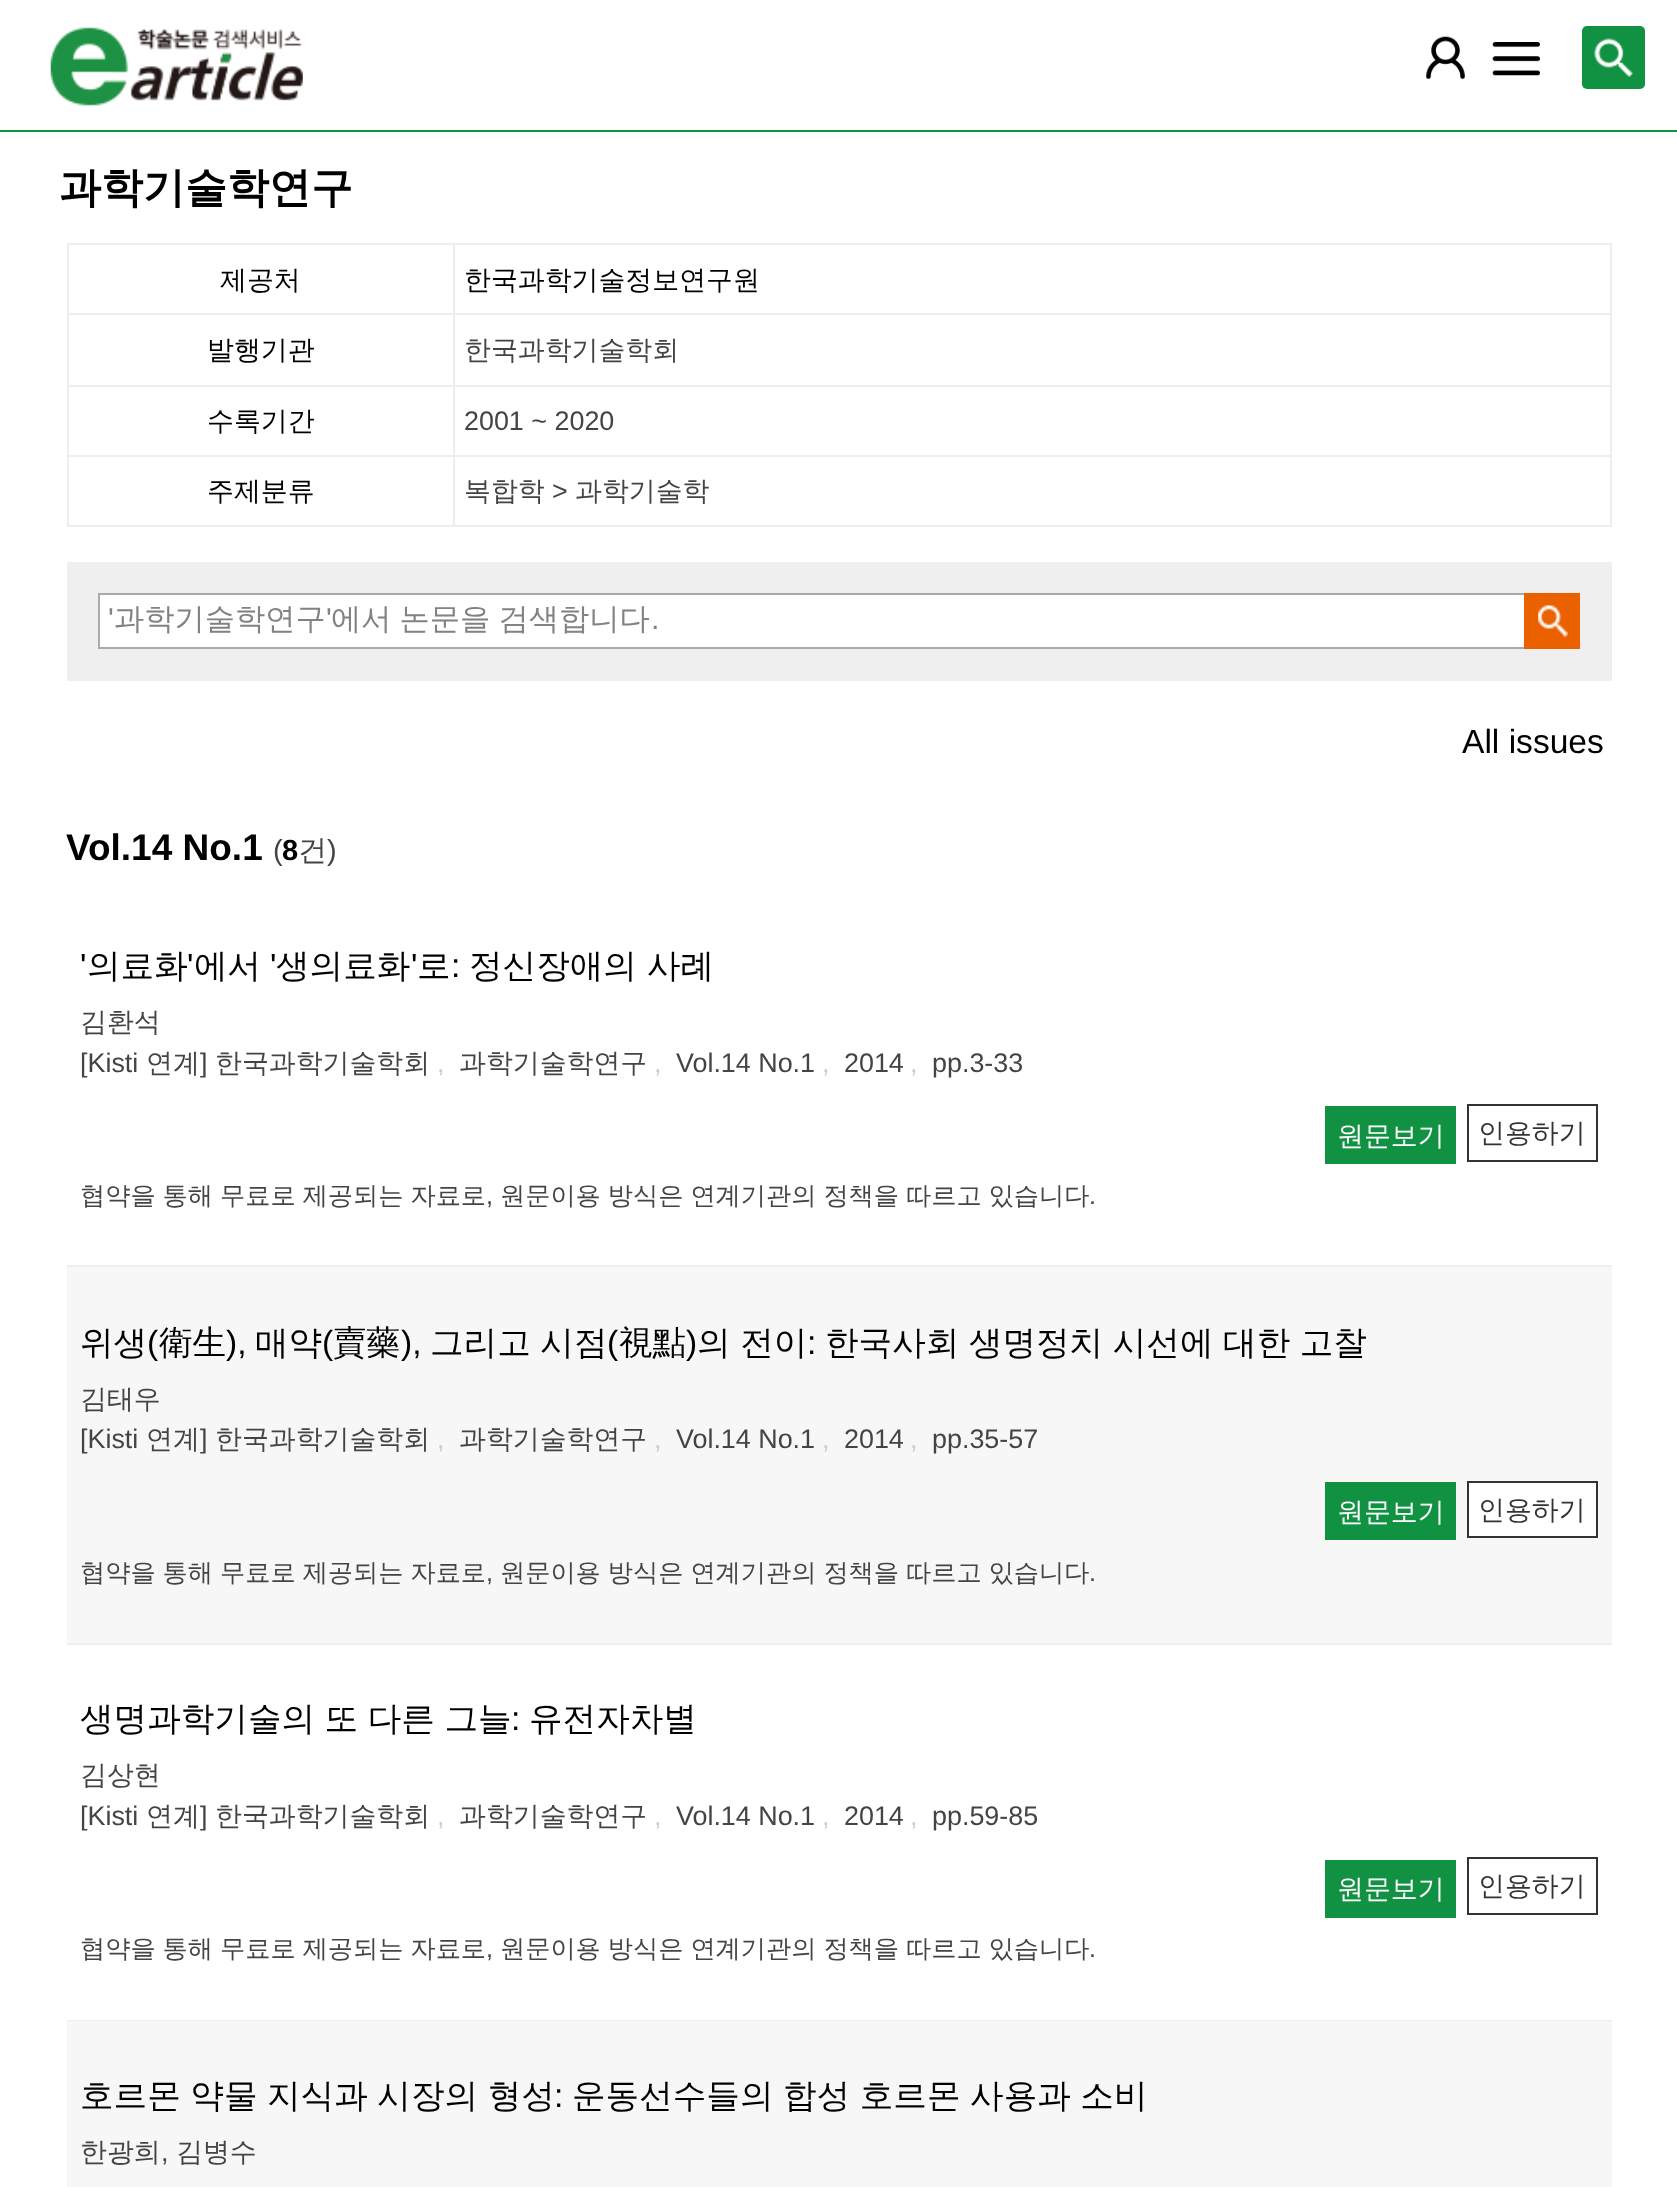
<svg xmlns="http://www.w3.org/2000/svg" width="1677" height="2187">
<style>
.a{font:bold 42px WenQuanYi Zen Hei;fill:#000}
.b{font:500 26.9px WenQuanYi Zen Hei;fill:#000}
.c{font:500 26.9px WenQuanYi Zen Hei;fill:#444}
.d{font:26.9px Liberation Sans;fill:#444}
.e{font:30.25px Liberation Sans;fill:#828282}
.f{font:500 30.25px WenQuanYi Zen Hei;fill:#828282}
.g{font:33.6px Liberation Sans;fill:#000}
.h{font:bold 37px Liberation Sans;fill:#000}
.i{font:29px Liberation Sans;fill:#444}
.j{font:bold 29px Liberation Sans;fill:#000}
.k{font:500 29px WenQuanYi Zen Hei;fill:#444}
.l{font:500 33.6px WenQuanYi Zen Hei;fill:#000}
.m{font:26.9px Liberation Sans;fill:#ccc}
.n{font:500 26.9px WenQuanYi Zen Hei;fill:#fff}
.o{font:500 26.9px WenQuanYi Zen Hei;fill:#333}
.p{font:500 25.2px WenQuanYi Zen Hei;fill:#444}
.q{font:25.2px Liberation Sans;fill:#444}
</style>
<rect width="100%" height="100%" fill="#fff"/>
<path fill="#119242" d="M0 130h1677v2H0z"/>
<image href="1.png" x="50" y="27" width="253" height="79"/>
<image href="2.png" x="1426" y="36" width="39" height="43"/>
<image href="3.png" x="1492" y="42" width="48" height="34"/>
<rect fill="#119242" x="1582" y="26" width="63" height="63" rx="5"/>
<image href="4.png" x="1594" y="38" width="39" height="39"/>
<path fill="#eee" d="M67 525h1545v2H67z"/>
<path fill="#eee" d="M67 243h1545v2H67z"/>
<path fill="#eee" d="M1610 243h2v70H1610z"/>
<path fill="#eee" d="M67 243h2v70H67z"/>
<path fill="#eee" d="M453 245h2v68H453z"/>
<path fill="#eee" d="M67 313h1545v2H67z"/>
<path fill="#eee" d="M1610 313h2v72H1610z"/>
<path fill="#eee" d="M67 313h2v72H67z"/>
<path fill="#eee" d="M453 315h2v70H453z"/>
<path fill="#eee" d="M67 385h1545v2H67z"/>
<path fill="#eee" d="M1610 385h2v70H1610z"/>
<path fill="#eee" d="M67 385h2v70H67z"/>
<path fill="#eee" d="M453 387h2v68H453z"/>
<path fill="#eee" d="M67 455h1545v2H67z"/>
<path fill="#eee" d="M1610 455h2v70H1610z"/>
<path fill="#eee" d="M67 455h2v70H67z"/>
<path fill="#eee" d="M453 457h2v68H453z"/>
<path fill="#efefef" d="M67 562h1545v119H67z"/>
<path fill="#fff" d="M100 595h1424v52H100z"/>
<path fill="none" stroke="#aaa" stroke-width="2" d="M99 594h1480v54H99z"/>
<path fill="#eb6100" d="M1524 593h56v56H1524z"/>
<image href="5.png" x="1538" y="605" width="30" height="32"/>
<path fill="#eee" d="M67 1265h1545v2H67z"/>
<path fill="#119242" d="M1325 1106h131v58H1325z"/>
<path fill="none" stroke="#333" stroke-width="2" d="M1468 1105h129v56H1468z"/>
<path fill="#f7f7f7" d="M67 1267h1545v376H67z"/>
<path fill="#eee" d="M67 1643h1545v2H67z"/>
<path fill="#119242" d="M1325 1482h131v58H1325z"/>
<path fill="#fff" stroke="#333" stroke-width="2" d="M1468 1482h129v55H1468z"/>
<path fill="#eee" d="M67 2020h1545v1H67z"/>
<path fill="#119242" d="M1325 1860h131v58H1325z"/>
<path fill="none" stroke="#333" stroke-width="2" d="M1468 1858h129v56H1468z"/>
<path fill="#f7f7f7" d="M67 2021h1545v166H67z"/>
<text class="a" x="59" y="202">과학기술학연구</text>
<text class="b" x="220" y="289">제공처</text>
<text class="b" x="464" y="289">한국과학기술정보연구원</text>
<text class="b" x="207" y="359">발행기관</text>
<text class="c" x="464" y="359">한국과학기술학회</text>
<text class="b" x="207" y="430">수록기간</text>
<text class="d" x="464" y="430">2001 ~ 2020</text>
<text class="b" x="207" y="500">주제분류</text>
<text class="c" x="464" y="500">복합학</text>
<text class="d" x="552" y="500">&gt;</text>
<text class="c" x="575" y="500">과학기술학</text>
<text class="e" x="108" y="629">'</text>
<text class="f" x="114" y="629">과학기술학연구</text>
<text class="e" x="326" y="629">'</text>
<text class="f" x="331" y="629" word-spacing="-1">에서 논문을 검색합니다</text>
<text class="e" x="651" y="629">.</text>
<text class="g" x="1462" y="753">All issues</text>
<text class="h" x="66" y="860">Vol.14 No.1</text>
<text class="i" x="273" y="860">(</text>
<text class="j" x="282" y="860">8</text>
<text class="k" x="298" y="860">건</text>
<text class="i" x="327" y="860">)</text>
<text class="g" x="80" y="977">'</text>
<text class="l" x="87" y="977">의료화</text>
<text class="g" x="187" y="977">'</text>
<text class="l" x="194" y="977">에서</text>
<text class="g" x="270" y="977">'</text>
<text class="l" x="276" y="977">생의료화</text>
<text class="g" x="411" y="977">'</text>
<text class="l" x="417" y="977">로</text>
<text class="g" x="451" y="977">:</text>
<text class="l" x="469" y="977">정신장애의 사례</text>
<text class="c" x="80" y="1031">김환석</text>
<text class="d" x="80" y="1072">[Kisti</text>
<text class="c" x="146" y="1072">연계</text>
<text class="d" x="200" y="1072">]</text>
<text class="c" x="215" y="1072">한국과학기술학회</text>
<text class="m" x="437" y="1072">,</text>
<text class="c" x="459" y="1072">과학기술학연구</text>
<text class="m" x="654" y="1072">,</text>
<text class="d" x="676" y="1072">Vol.14 No.1</text>
<text class="m" x="822" y="1072">,</text>
<text class="d" x="844" y="1072">2014</text>
<text class="m" x="910" y="1072">,</text>
<text class="d" x="932" y="1072">pp.3-33</text>
<text class="n" x="1337" y="1145">원문보기</text>
<text class="o" x="1478" y="1142">인용하기</text>
<text class="p" x="80" y="1204" word-spacing="-0.5">협약을 통해 무료로 제공되는 자료로</text>
<text class="q" x="486" y="1204">,</text>
<text class="p" x="500" y="1204" word-spacing="-0.5">원문이용 방식은 연계기관의 정책을 따르고 있습니다</text>
<text class="q" x="1089" y="1204">.</text>
<text class="l" x="80" y="1354">위생</text>
<text class="g" x="147" y="1354">(</text>
<text class="l" x="159" y="1354">衛生</text>
<text class="g" x="226" y="1354">),</text>
<text class="l" x="255" y="1354">매약</text>
<text class="g" x="322" y="1354">(</text>
<text class="l" x="333" y="1354">賣藥</text>
<text class="g" x="401" y="1354">),</text>
<text class="l" x="430" y="1354" word-spacing="-0.5">그리고 시점</text>
<text class="g" x="607" y="1354">(</text>
<text class="l" x="619" y="1354">視點</text>
<text class="g" x="686" y="1354">)</text>
<text class="l" x="697" y="1354" word-spacing="-0.5">의 전이</text>
<text class="g" x="807" y="1354">:</text>
<text class="l" x="825" y="1354" word-spacing="-0.5">한국사회 생명정치 시선에 대한 고찰</text>
<text class="c" x="80" y="1408">김태우</text>
<text class="d" x="80" y="1448">[Kisti</text>
<text class="c" x="146" y="1448">연계</text>
<text class="d" x="200" y="1448">]</text>
<text class="c" x="215" y="1448">한국과학기술학회</text>
<text class="m" x="437" y="1448">,</text>
<text class="c" x="459" y="1448">과학기술학연구</text>
<text class="m" x="654" y="1448">,</text>
<text class="d" x="676" y="1448">Vol.14 No.1</text>
<text class="m" x="822" y="1448">,</text>
<text class="d" x="844" y="1448">2014</text>
<text class="m" x="910" y="1448">,</text>
<text class="d" x="932" y="1448">pp.35-57</text>
<text class="n" x="1337" y="1521">원문보기</text>
<text class="o" x="1478" y="1519">인용하기</text>
<text class="p" x="80" y="1581" word-spacing="-0.5">협약을 통해 무료로 제공되는 자료로</text>
<text class="q" x="486" y="1581">,</text>
<text class="p" x="500" y="1581" word-spacing="-0.5">원문이용 방식은 연계기관의 정책을 따르고 있습니다</text>
<text class="q" x="1089" y="1581">.</text>
<text class="l" x="80" y="1730" word-spacing="-0.5">생명과학기술의 또 다른 그늘</text>
<text class="g" x="511" y="1730">:</text>
<text class="l" x="529" y="1730">유전자차별</text>
<text class="c" x="80" y="1784">김상현</text>
<text class="d" x="80" y="1825">[Kisti</text>
<text class="c" x="146" y="1825">연계</text>
<text class="d" x="200" y="1825">]</text>
<text class="c" x="215" y="1825">한국과학기술학회</text>
<text class="m" x="437" y="1825">,</text>
<text class="c" x="459" y="1825">과학기술학연구</text>
<text class="m" x="654" y="1825">,</text>
<text class="d" x="676" y="1825">Vol.14 No.1</text>
<text class="m" x="822" y="1825">,</text>
<text class="d" x="844" y="1825">2014</text>
<text class="m" x="910" y="1825">,</text>
<text class="d" x="932" y="1825">pp.59-85</text>
<text class="n" x="1337" y="1898">원문보기</text>
<text class="o" x="1478" y="1895">인용하기</text>
<text class="p" x="80" y="1957" word-spacing="-0.5">협약을 통해 무료로 제공되는 자료로</text>
<text class="q" x="486" y="1957">,</text>
<text class="p" x="500" y="1957" word-spacing="-0.5">원문이용 방식은 연계기관의 정책을 따르고 있습니다</text>
<text class="q" x="1089" y="1957">.</text>
<text class="l" x="80" y="2107" word-spacing="-0.5">호르몬 약물 지식과 시장의 형성</text>
<text class="g" x="554" y="2107">:</text>
<text class="l" x="572" y="2107" word-spacing="-0.5">운동선수들의 합성 호르몬 사용과 소비</text>
<text class="c" x="80" y="2161">한광희</text>
<text class="d" x="161" y="2161">,</text>
<text class="c" x="176" y="2161">김병수</text>
</svg>
